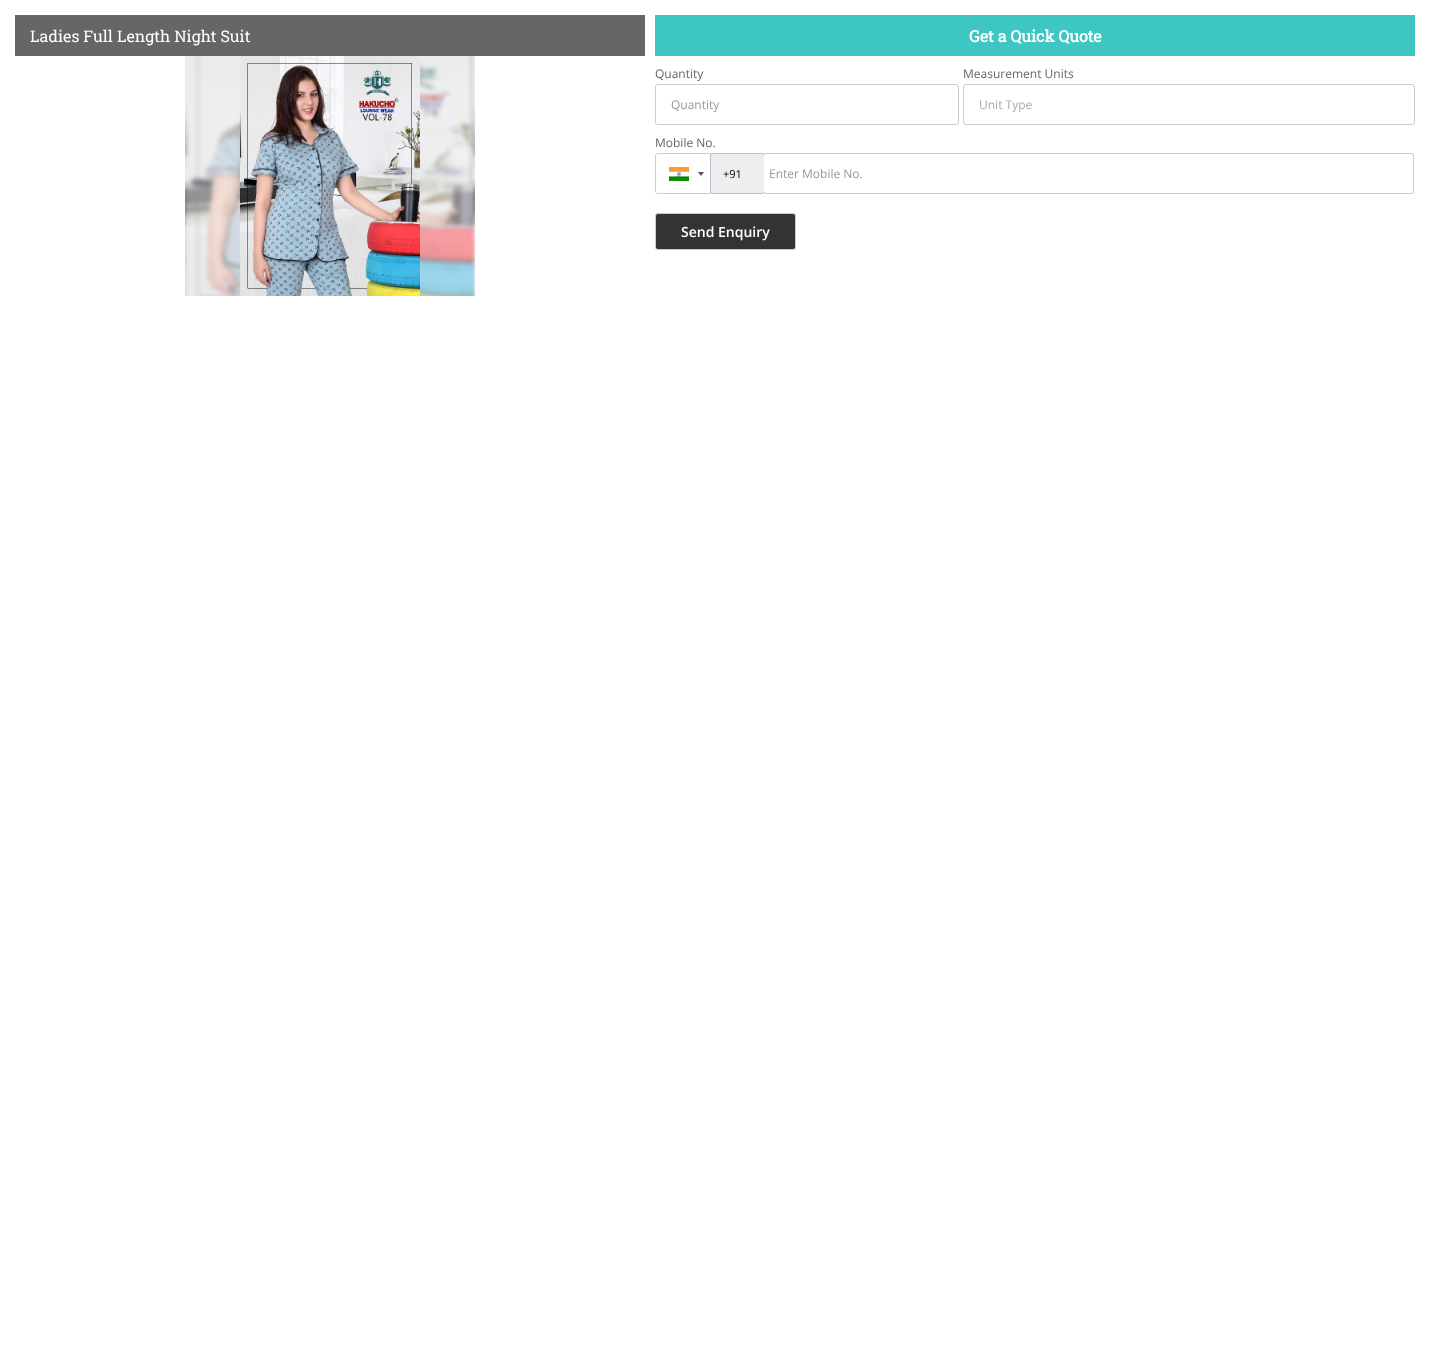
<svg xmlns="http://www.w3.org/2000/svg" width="1430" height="1371">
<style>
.a{font:16px Roboto Slab;fill:#fff}
.b{font:bold 16px Roboto Slab;fill:#fff}
.c{font:12px Open Sans;fill:#666}
.d{font:12px Open Sans;fill:#999}
.e{font:12px Open Sans;fill:#aaa}
.f{font:11px Open Sans;fill:#000}
.g{font:600 14px Open Sans;fill:#fff}
</style>
<defs>
<clipPath id="clip1"><path d="M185 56h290v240H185z"/></clipPath>
</defs>
<rect width="100%" height="100%" fill="#fff"/>
<path fill="#666" d="M15 15h630v41H15z"/>
<image href="1.png" x="185" y="56" width="5" height="240"/>
<g clip-path="url(#clip1)">
<path fill="#f7f7f780" filter="blur(2px)" d="M-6 46h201v260H-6z"/>
</g>
<image href="2.png" x="185" y="56" width="290" height="240"/>
<g clip-path="url(#clip1)">
<path fill="#f7f7f780" filter="blur(2px)" d="M185 46h300v260H185z"/>
</g>
<image href="3.png" x="240" y="56" width="180" height="240"/>
<image href="4.png" x="471" y="109" width="4" height="187"/>
<path fill="#3ec7c2" d="M655 15h760v41H655z"/>
<rect fill="none" stroke="#ccc" x="655.5" y="84.5" width="303" height="40" rx="2.5"/>
<rect fill="#333" stroke="#ccc" x="655.5" y="213.5" width="140" height="36" rx="2.5"/>
<g clip-path="url(#clip1)">
<path fill="#f7f7f780" filter="blur(2px)" d="M475 46h300v260H475z"/>
</g>
<rect fill="none" stroke="#ccc" x="963.5" y="84.5" width="451" height="40" rx="2.5"/>
<path fill="none" stroke="#ccc" d="M658 153.5h52.5v40h-52.5c-1.5 0-2.5-1-2.5-2.5v-35c0-1.5 1-2.5 2.5-2.5z"/>
<path fill="#888" filter="blur(0.5px)" d="M669 167h20v14H669z"/>
<image href="5.png" x="669" y="167" width="20" height="14"/>
<path fill="#555" d="M698 172h6l-3 4z"/>
<rect fill="#eee" stroke="#b2c1cf" x="710.5" y="153.5" width="54" height="40" rx="2.5"/>
<path fill="#fff" d="M767 154h644c1 0 2 1 2 2v35c0 1-1 2-2 2h-644c-2 0-3-1-3-2v-35c0-1 1-2 3-2z"/>
<path fill="#ccc" fill-rule="evenodd" d="M767 153h644c2 0 3 1 3 3v35c0 2-1 3-3 3h-644c-2 0-3-1-3-3v-35c0-2 1-3 3-3zm0 1h644c1 0 2 1 2 2v35c0 1-1 2-2 2h-644c-2 0-3-1-3-2v-35c0-1 1-2 3-2z"/>
<text class="a" x="30" y="42">Ladies Full Length Night Suit</text>
<text class="b" x="969" y="42">Get a Quick Quote</text>
<text class="c" x="655" y="78">Quantity</text>
<text class="d" x="671" y="109">Quantity</text>
<text class="c" x="963" y="78">Measurement Units</text>
<text class="e" x="979" y="109">Unit Type</text>
<text class="c" x="655" y="147">Mobile No.</text>
<text class="f" x="723" y="178">+91</text>
<text class="d" x="769" y="178">Enter Mobile No.</text>
<text class="g" x="681" y="237">Send Enquiry</text>
</svg>
